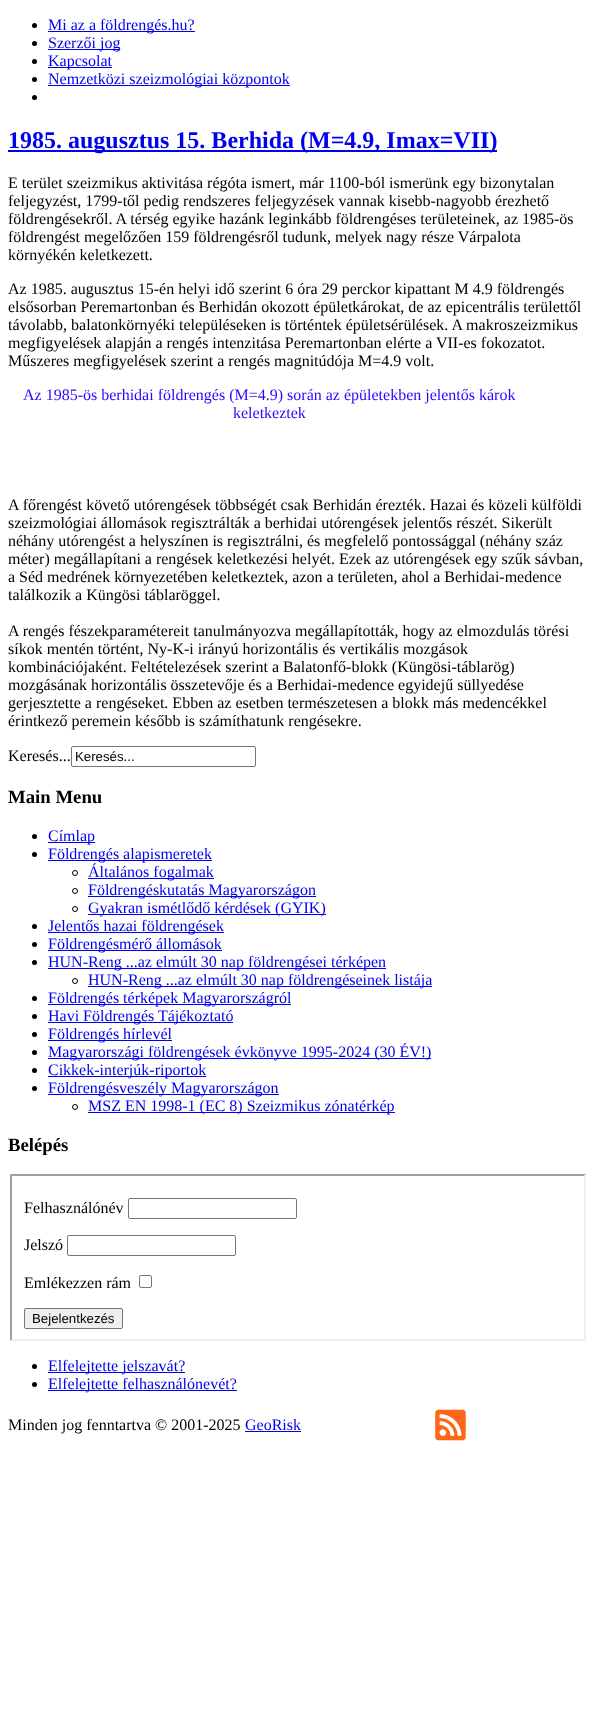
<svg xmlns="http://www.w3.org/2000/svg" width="596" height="1730">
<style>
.a{font:16px Liberation Serif;fill:#00e}
.b{font:bold 24px Liberation Serif;fill:#00e}
.c{font:16px Liberation Serif;fill:#000}
.d{font:16px Liberation Serif;fill:#30f}
.e{font:13.25px Liberation Sans;fill:#000}
.f{font:bold 18.75px Liberation Serif;fill:#000}
</style>
<rect width="100%" height="100%" fill="#fff"/>
<circle fill="#000" cx="34.5" cy="25.5" r="2.5"/>
<path fill="#00e" d="M48 31h147v1H48z"/>
<circle fill="#000" cx="34.5" cy="43.5" r="2.5"/>
<path fill="#00e" d="M48 49h72v1H48z"/>
<circle fill="#000" cx="34.5" cy="61.5" r="2.5"/>
<path fill="#00e" d="M48 67h64v1H48z"/>
<circle fill="#000" cx="34.5" cy="79.5" r="2.5"/>
<path fill="#00e" d="M48 85h242v1H48z"/>
<circle fill="#000" cx="34.5" cy="97.5" r="2.5"/>
<path fill="#00e" d="M8 150h489v2H8z"/>
<rect fill="none" stroke="#767676" x="71.5" y="746.5" width="184" height="20" rx="1.5"/>
<circle fill="#000" cx="34.5" cy="836.5" r="2.5"/>
<path fill="#00e" d="M48 842h47v1H48z"/>
<circle fill="#000" cx="34.5" cy="854.5" r="2.5"/>
<path fill="#00e" d="M48 860h164v1H48z"/>
<circle fill="none" stroke="#000" cx="75" cy="873" r="2.5"/>
<path fill="#00e" d="M88 878h126v1H88z"/>
<circle fill="none" stroke="#000" cx="75" cy="891" r="2.5"/>
<path fill="#00e" d="M88 896h228v1H88z"/>
<circle fill="none" stroke="#000" cx="75" cy="909" r="2.5"/>
<path fill="#00e" d="M88 914h238v1H88z"/>
<circle fill="#000" cx="34.5" cy="926.5" r="2.5"/>
<path fill="#00e" d="M48 932h176v1H48z"/>
<circle fill="#000" cx="34.5" cy="944.5" r="2.5"/>
<path fill="#00e" d="M48 950h174v1H48z"/>
<circle fill="#000" cx="34.5" cy="962.5" r="2.5"/>
<path fill="#00e" d="M48 968h338v1H48z"/>
<circle fill="none" stroke="#000" cx="75" cy="981" r="2.5"/>
<path fill="#00e" d="M88 986h344v1H88z"/>
<circle fill="#000" cx="34.5" cy="998.5" r="2.5"/>
<path fill="#00e" d="M48 1004h243v1H48z"/>
<circle fill="#000" cx="34.5" cy="1016.5" r="2.5"/>
<path fill="#00e" d="M48 1022h185v1H48z"/>
<circle fill="#000" cx="34.5" cy="1034.5" r="2.5"/>
<path fill="#00e" d="M48 1040h124v1H48z"/>
<circle fill="#000" cx="34.5" cy="1052.5" r="2.5"/>
<path fill="#00e" d="M48 1058h383v1H48z"/>
<circle fill="#000" cx="34.5" cy="1070.5" r="2.5"/>
<path fill="#00e" d="M48 1076h158v1H48z"/>
<circle fill="#000" cx="34.5" cy="1088.5" r="2.5"/>
<path fill="#00e" d="M48 1094h231v1H48z"/>
<circle fill="none" stroke="#000" cx="75" cy="1107" r="2.5"/>
<path fill="#00e" d="M88 1112h307v1H88z"/>
<path fill="#9f9f9f" d="M10 1174h576l-2 2h-572z"/>
<path fill="#efefef" d="M586 1174v167l-2-2v-163z"/>
<path fill="#efefef" d="M586 1341h-576l2-2h572z"/>
<path fill="#9f9f9f" d="M10 1341v-167l2 2v163z"/>
<rect fill="none" stroke="#767676" x="128.5" y="1198.5" width="168" height="20" rx="1.5"/>
<rect fill="none" stroke="#767676" x="67.5" y="1235.5" width="168" height="20" rx="1.5"/>
<rect fill="none" stroke="#767676" x="139.5" y="1275.5" width="12" height="12" rx="1.5"/>
<rect fill="#efefef" stroke="#767676" x="24.5" y="1308.5" width="98" height="20" rx="1.5"/>
<circle fill="#000" cx="34.5" cy="1366.5" r="2.5"/>
<path fill="#00e" d="M48 1372h137v1H48z"/>
<circle fill="#000" cx="34.5" cy="1384.5" r="2.5"/>
<path fill="#00e" d="M48 1390h189v1H48z"/>
<path fill="#00e" d="M245 1431h56v1H245z"/>
<image href="1.png" x="435" y="1409" width="31" height="32"/>
<text class="a" x="48" y="30">Mi az a földrengés.hu?</text>
<text class="a" x="48" y="48">Szerzői jog</text>
<text class="a" x="48" y="66">Kapcsolat</text>
<text class="a" x="48" y="84">Nemzetközi szeizmológiai központok</text>
<text class="b" x="8" y="148">1985. augusztus 15. Berhida (M=4.9, Imax=VII)</text>
<text class="c" x="8" y="188">E terület szeizmikus aktivitása régóta ismert, már 1100-ból ismerünk egy bizonytalan</text>
<text class="c" x="8" y="206">feljegyzést, 1799-től pedig rendszeres feljegyzések vannak kisebb-nagyobb érezhető</text>
<text class="c" x="8" y="224">földrengésekről. A térség egyike hazánk leginkább földrengéses területeinek, az 1985-ös</text>
<text class="c" x="8" y="242">földrengést megelőzően 159 földrengésről tudunk, melyek nagy része Várpalota</text>
<text class="c" x="8" y="260">környékén keletkezett.</text>
<text class="c" x="8" y="294">Az 1985. augusztus 15-én helyi idő szerint 6 óra 29 perckor kipattant M 4.9 földrengés</text>
<text class="c" x="8" y="312">elsősorban Peremartonban és Berhidán okozott épületkárokat, de az epicentrális területtől</text>
<text class="c" x="8" y="330">távolabb, balatonkörnyéki településeken is történtek épületsérülések. A makroszeizmikus</text>
<text class="c" x="8" y="348">megfigyelések alapján a rengés intenzitása Peremartonban elérte a VII-es fokozatot.</text>
<text class="c" x="8" y="366">Műszeres megfigyelések szerint a rengés magnitúdója M=4.9 volt.</text>
<text class="d" x="23" y="400">Az 1985-ös berhidai földrengés (M=4.9) során az épületekben jelentős károk</text>
<text class="d" x="233" y="418">keletkeztek</text>
<text class="c" x="8" y="510">A főrengést követő utórengések többségét csak Berhidán érezték. Hazai és közeli külföldi</text>
<text class="c" x="8" y="528">szeizmológiai állomások regisztrálták a berhidai utórengések jelentős részét. Sikerült</text>
<text class="c" x="8" y="546">néhány utórengést a helyszínen is regisztrálni, és megfelelő pontossággal (néhány száz</text>
<text class="c" x="8" y="564">méter) megállapítani a rengések keletkezési helyét. Ezek az utórengések egy szűk sávban,</text>
<text class="c" x="8" y="582">a Séd medrének környezetében keletkeztek, azon a területen, ahol a Berhidai-medence</text>
<text class="c" x="8" y="600">találkozik a Küngösi táblaröggel.</text>
<text class="c" x="8" y="636">A rengés fészekparamétereit tanulmányozva megállapították, hogy az elmozdulás törési</text>
<text class="c" x="8" y="654">síkok mentén történt, Ny-K-i irányú horizontális és vertikális mozgások</text>
<text class="c" x="8" y="672">kombinációjaként. Feltételezések szerint a Balatonfő-blokk (Küngösi-táblarög)</text>
<text class="c" x="8" y="690">mozgásának horizontális összetevője és a Berhidai-medence egyidejű süllyedése</text>
<text class="c" x="8" y="708">gerjesztette a rengéseket. Ebben az esetben természetesen a blokk más medencékkel</text>
<text class="c" x="8" y="726">érintkező peremein később is számíthatunk rengésekre.</text>
<text class="c" x="8" y="761">Keresés...</text>
<text class="e" x="75" y="761">Keresés...</text>
<text class="f" x="8" y="803">Main Menu</text>
<text class="a" x="48" y="841">Címlap</text>
<text class="a" x="48" y="859">Földrengés alapismeretek</text>
<text class="a" x="88" y="877">Általános fogalmak</text>
<text class="a" x="88" y="895">Földrengéskutatás Magyarországon</text>
<text class="a" x="88" y="913">Gyakran ismétlődő kérdések (GYIK)</text>
<text class="a" x="48" y="931">Jelentős hazai földrengések</text>
<text class="a" x="48" y="949">Földrengésmérő állomások</text>
<text class="a" x="48" y="967">HUN-Reng ...az elmúlt 30 nap földrengései térképen</text>
<text class="a" x="88" y="985">HUN-Reng ...az elmúlt 30 nap földrengéseinek listája</text>
<text class="a" x="48" y="1003">Földrengés térképek Magyarországról</text>
<text class="a" x="48" y="1021">Havi Földrengés Tájékoztató</text>
<text class="a" x="48" y="1039">Földrengés hírlevél</text>
<text class="a" x="48" y="1057">Magyarországi földrengések évkönyve 1995-2024 (30 ÉV!)</text>
<text class="a" x="48" y="1075">Cikkek-interjúk-riportok</text>
<text class="a" x="48" y="1093">Földrengésveszély Magyarországon</text>
<text class="a" x="88" y="1111">MSZ EN 1998-1 (EC 8) Szeizmikus zónatérkép</text>
<text class="f" x="8" y="1151">Belépés</text>
<text class="c" x="24" y="1213">Felhasználónév</text>
<text class="c" x="24" y="1250">Jelszó</text>
<text class="c" x="24" y="1288">Emlékezzen rám</text>
<text class="e" x="32" y="1323">Bejelentkezés</text>
<text class="a" x="48" y="1371">Elfelejtette jelszavát?</text>
<text class="a" x="48" y="1389">Elfelejtette felhasználónevét?</text>
<text class="c" x="8" y="1430">Minden jog fenntartva © 2001-2025</text>
<text class="a" x="245" y="1430">GeoRisk</text>
</svg>
